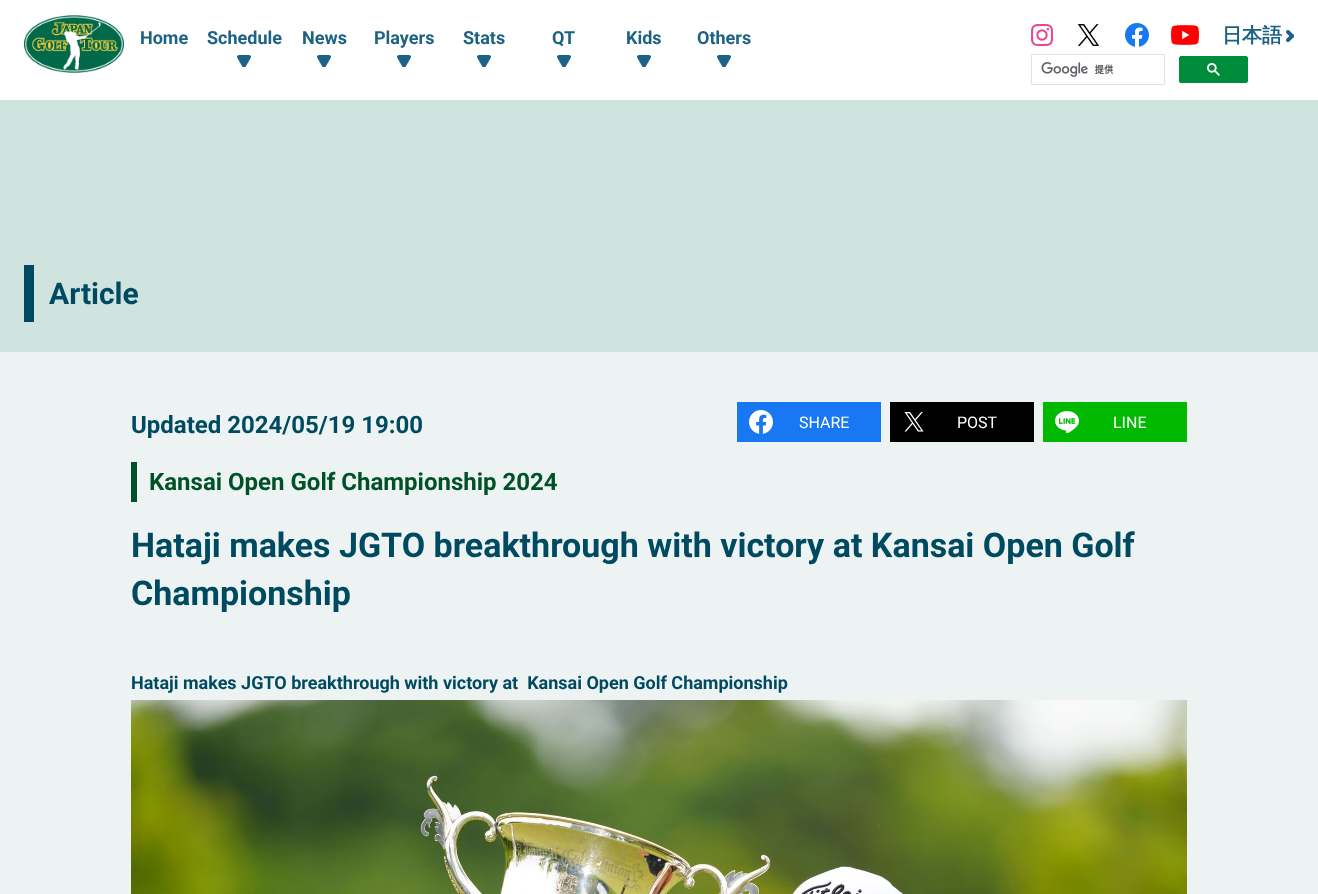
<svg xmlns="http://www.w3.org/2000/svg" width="1318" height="894">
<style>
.a{font:bold 18px Roboto;fill:#1b6284}
.b{font:bold 20px WenQuanYi Zen Hei;fill:#1b6284}
.c{font:bold 30px Roboto;fill:#004a61}
.d{font:bold 24px Roboto;fill:#004a61}
.e{font:16px Roboto;fill:#fff}
.f{font:bold 24px Roboto;fill:#005128}
.g{font:bold 34px Roboto;fill:#004a61}
.h{font:bold 18px Roboto;fill:#004a61}
</style>
<rect width="100%" height="100%" fill="#cfe4de"/>
<path fill="#fff" d="M0 0h1318v100H0z"/>
<image href="1.png" x="24" y="15" width="100" height="58"/>
<image href="2.png" x="237" y="55" width="14" height="12"/>
<image href="2.png" x="317" y="55" width="14" height="12"/>
<image href="2.png" x="397" y="55" width="14" height="12"/>
<image href="2.png" x="477" y="55" width="14" height="12"/>
<image href="2.png" x="557" y="55" width="14" height="12"/>
<image href="2.png" x="637" y="55" width="14" height="12"/>
<image href="2.png" x="717" y="55" width="14" height="12"/>
<image href="3.png" x="1031" y="24" width="22" height="22"/>
<image href="4.png" x="1077" y="24" width="23" height="22"/>
<image href="5.png" x="1125" y="23" width="24" height="24"/>
<image href="6.png" x="1171" y="25" width="28" height="20"/>
<image href="7.png" x="1286" y="30" width="8" height="12"/>
<path fill="none" stroke="#dfe1e5" d="M1031.5 54.5h133v30H1031.5z"/>
<image href="8.png" x="1041" y="62" width="73" height="15"/>
<rect fill="#008d3b" stroke="#008d3b" x="1179.5" y="56.5" width="68" height="26" rx="1.5"/>
<image href="9.png" x="1207" y="63" width="13" height="13"/>
<path fill="#004a61" d="M24 265h10v57H24z"/>
<path fill="#ecf3f2" d="M0 352h1318v542H0z"/>
<path fill="#1877f2" d="M737 402h144v40H737z"/>
<image href="10.png" x="749" y="410" width="24" height="24"/>
<path fill="#000" d="M890 402h144v40H890z"/>
<image href="11.png" x="904" y="412" width="20" height="20"/>
<path fill="#00b900" d="M1043 402h144v40H1043z"/>
<image href="12.png" x="1055" y="411" width="24" height="22"/>
<path fill="#005128" d="M131 462h6v40H131z"/>
<image href="13.png" x="131" y="700" width="1056" height="194"/>
<text class="a" x="140" y="44">Home</text>
<text class="a" x="207" y="44">Schedule</text>
<text class="a" x="302" y="44">News</text>
<text class="a" x="374" y="44">Players</text>
<text class="a" x="463" y="44">Stats</text>
<text class="a" x="552" y="44">QT</text>
<text class="a" x="626" y="44">Kids</text>
<text class="a" x="697" y="44">Others</text>
<text class="b" x="1222" y="42">日本語</text>
<text class="c" x="49" y="304">Article</text>
<text class="d" x="131" y="433">Updated 2024/05/19 19:00</text>
<text class="e" x="799" y="428">SHARE</text>
<text class="e" x="957" y="428">POST</text>
<text class="e" x="1113" y="428">LINE</text>
<text class="f" x="149" y="490">Kansai Open Golf Championship 2024</text>
<text class="g" x="131" y="557">Hataji makes JGTO breakthrough with victory at Kansai Open Golf</text>
<text class="g" x="131" y="605">Championship</text>
<text class="h" xml:space="preserve" x="131" y="689">Hataji makes JGTO breakthrough with victory at  Kansai Open Golf Championship</text>
</svg>
